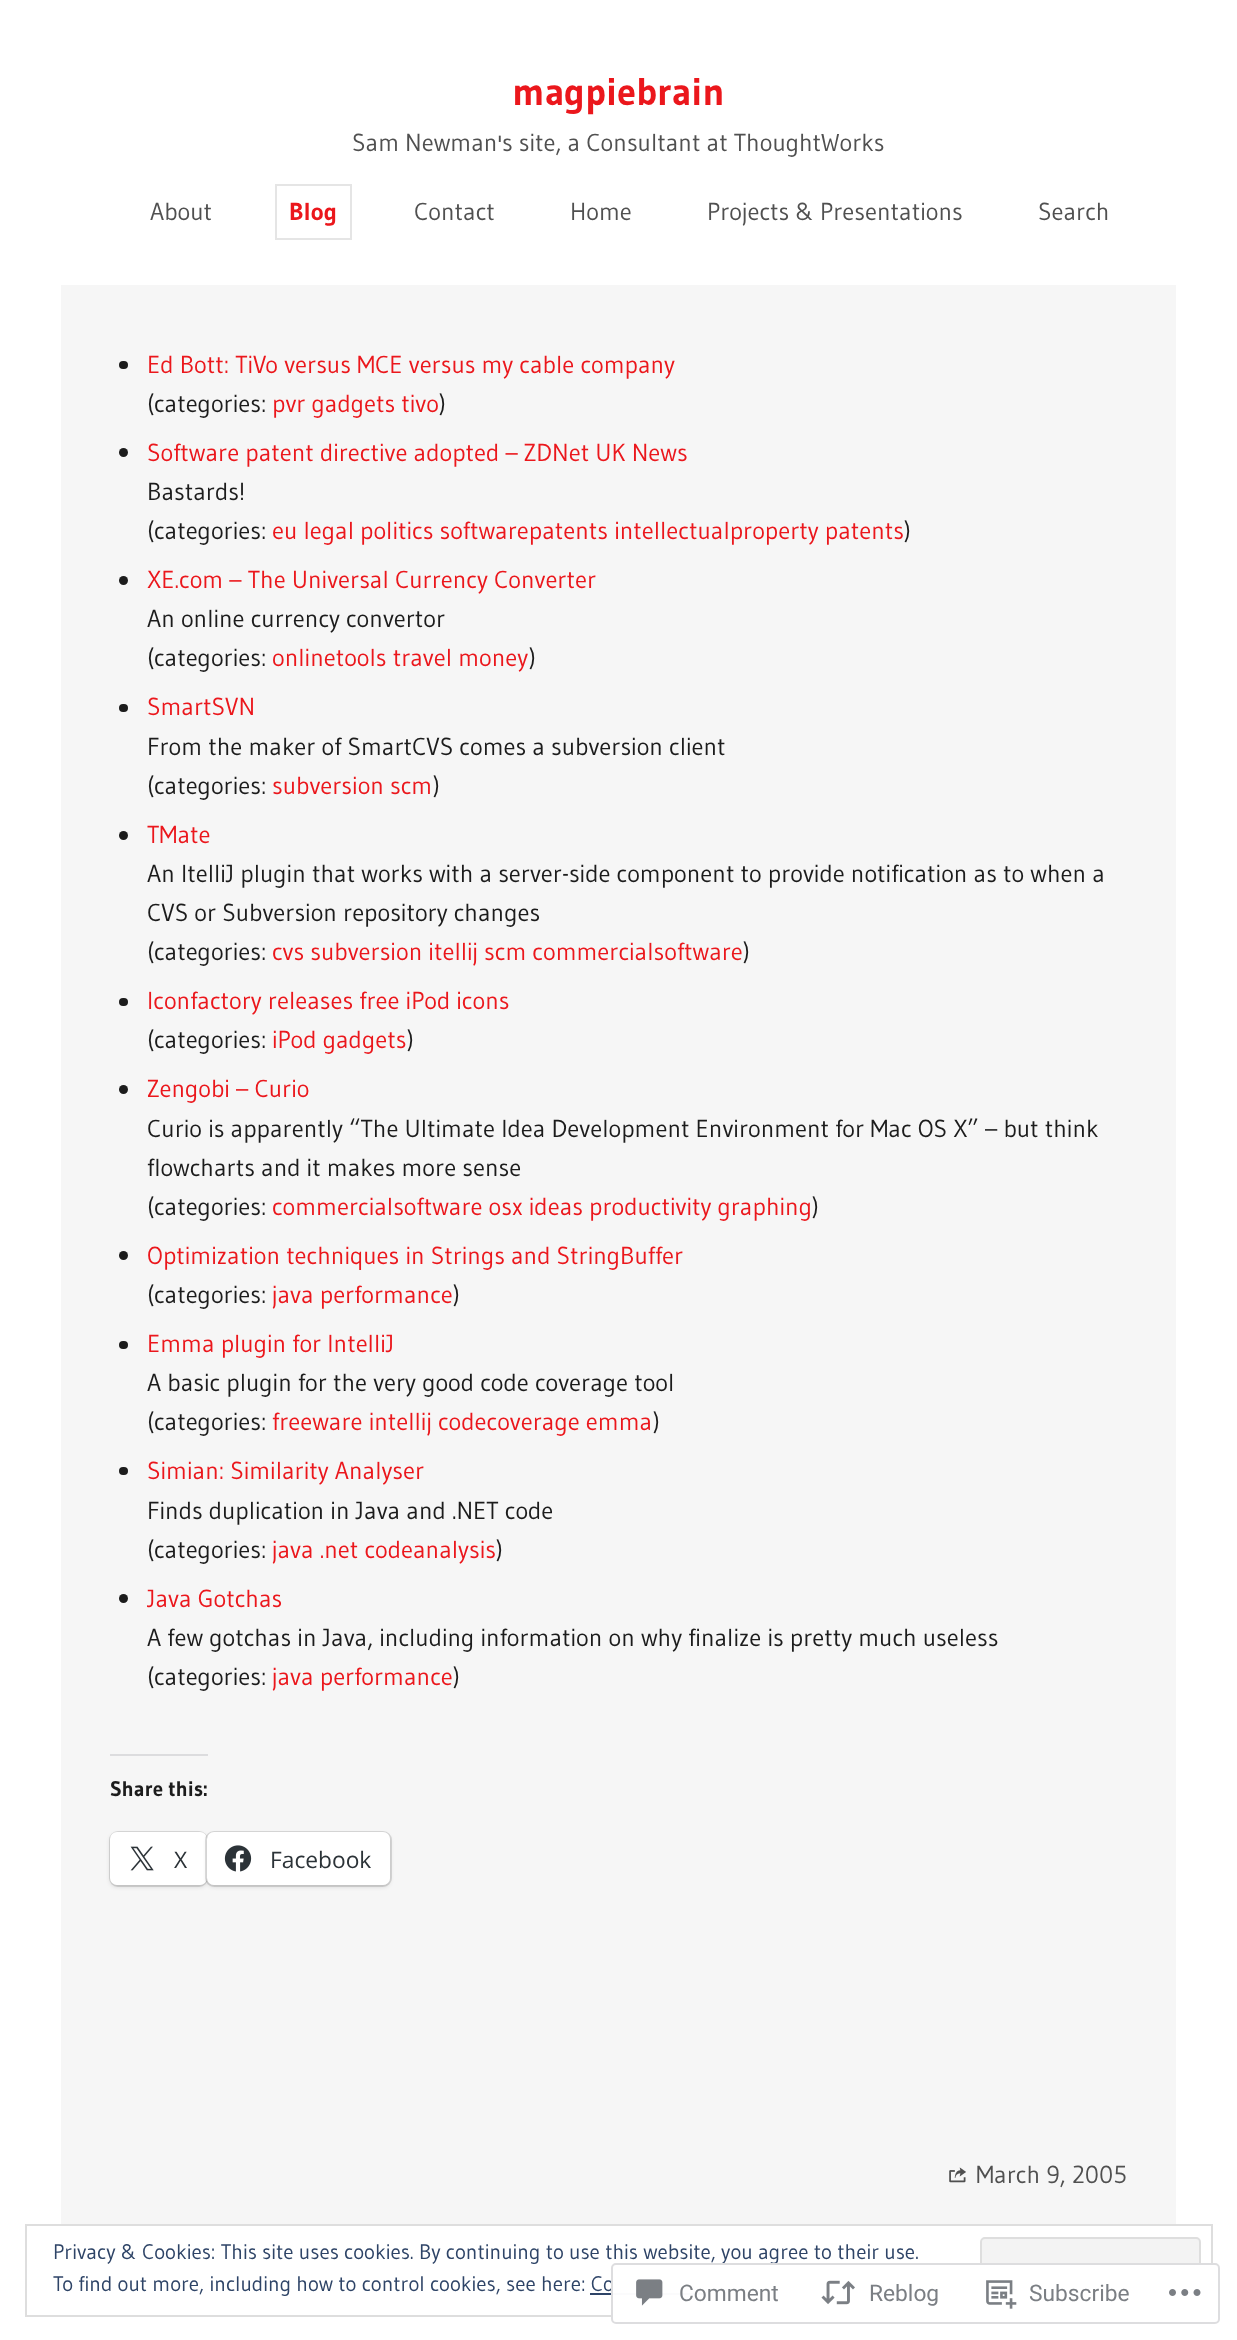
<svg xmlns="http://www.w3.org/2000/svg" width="1237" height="2340">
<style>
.a{font:bold 38.5px Gudea;fill:#eb171c}
.b{font:24.5px Gudea;fill:#505050}
.c{font:bold 24.5px Gudea;fill:#eb171c}
.d{font:24.5px Gudea;fill:#eb171c}
.e{font:24.5px Gudea;fill:#1c1c1c}
.f{font:bold 21px Gudea;fill:#1c1c1c}
.g{font:22.75px Open Sans;fill:#2c3338}
.h{font:21px Gudea;fill:#2e4467}
.i{font:22.75px Roboto;fill:#7b7f84}
</style>
<rect width="100%" height="100%" fill="#fff"/>
<path fill="none" stroke="#e5e5e5" stroke-width="2" d="M276 185h75v54H276z"/>
<path fill="#f6f6f6" d="M61 285h1115v1939H61z"/>
<rect fill="#1c1c1c" x="119" y="361" width="9" height="8" rx="4"/>
<circle fill="#1c1c1c" cx="123.5" cy="452.5" r="4.5"/>
<circle fill="#1c1c1c" cx="123.5" cy="580.5" r="4.5"/>
<rect fill="#1c1c1c" x="119" y="704" width="9" height="8" rx="4"/>
<circle fill="#1c1c1c" cx="123.5" cy="835.5" r="4.5"/>
<rect fill="#1c1c1c" x="119" y="998" width="9" height="8" rx="4"/>
<circle fill="#1c1c1c" cx="123.5" cy="1089.5" r="4.5"/>
<circle fill="#1c1c1c" cx="123.5" cy="1255.5" r="4.5"/>
<rect fill="#1c1c1c" x="119" y="1341" width="9" height="8" rx="4"/>
<rect fill="#1c1c1c" x="119" y="1467" width="9" height="8" rx="4"/>
<circle fill="#1c1c1c" cx="123.5" cy="1598.5" r="4.5"/>
<path fill="#dcdcde" d="M110 1754h98v2H110z"/>
<rect fill="none" stroke="#d8d8d8" stroke-width="2" x="110" y="1832" width="97" height="54" rx="8"/>
<rect fill="#0000001f" filter="blur(2px)" x="110" y="1834" width="97" height="53" rx="7"/>
<rect fill="#fff" x="110" y="1832" width="97" height="53" rx="7"/>
<image href="1.png" x="130" y="1846" width="24" height="25"/>
<rect fill="none" stroke="#0000001f" stroke-width="2" x="206" y="1832" width="185" height="54" rx="8"/>
<rect fill="#0000001f" filter="blur(2px)" x="207" y="1834" width="183" height="53" rx="7"/>
<rect fill="#fff" x="207" y="1832" width="183" height="53" rx="7"/>
<image href="2.png" x="224" y="1845" width="28" height="27"/>
<image href="3.png" x="949" y="2167" width="17" height="16"/>
<path fill="none" stroke="#dedede" stroke-width="2" d="M26 2225h1186v91H26z"/>
<rect fill="#f3f3f3" stroke="#dedede" stroke-width="2" x="981" y="2238" width="219" height="66" rx="4"/>
<path fill="#2e4467" d="M590 2293h115v2H590z"/>
<text class="a" x="512" y="105">magpiebrain</text>
<text class="b" x="352" y="151">Sam Newman's site, a Consultant at ThoughtWorks</text>
<text class="b" x="150" y="220">About</text>
<text class="c" x="289" y="220">Blog</text>
<text class="b" x="414" y="220">Contact</text>
<text class="b" x="570" y="220">Home</text>
<text class="b" x="707" y="220">Projects &amp; Presentations</text>
<text class="b" x="1038" y="220">Search</text>
<text class="d" x="147" y="373">Ed Bott: TiVo versus MCE versus my cable company</text>
<text class="e" x="147" y="412">(categories:</text>
<text class="d" x="272" y="412">pvr gadgets tivo</text>
<text class="e" x="439" y="412">)</text>
<text class="d" x="147" y="461">Software patent directive adopted – ZDNet UK News</text>
<text class="e" x="147" y="500">Bastards!</text>
<text class="e" x="147" y="539">(categories:</text>
<text class="d" x="272" y="539">eu legal politics softwarepatents intellectualproperty patents</text>
<text class="e" x="904" y="539">)</text>
<text class="d" x="147" y="588">XE.com – The Universal Currency Converter</text>
<text class="e" x="147" y="627">An online currency convertor</text>
<text class="e" x="147" y="666">(categories:</text>
<text class="d" x="272" y="666">onlinetools travel money</text>
<text class="e" x="529" y="666">)</text>
<text class="d" x="147" y="715">SmartSVN</text>
<text class="e" x="147" y="755">From the maker of SmartCVS comes a subversion client</text>
<text class="e" x="147" y="794">(categories:</text>
<text class="d" x="272" y="794">subversion scm</text>
<text class="e" x="433" y="794">)</text>
<text class="d" x="147" y="843">TMate</text>
<text class="e" x="147" y="882">An ItelliJ plugin that works with a server-side component to provide notification as to when a</text>
<text class="e" x="147" y="921">CVS or Subversion repository changes</text>
<text class="e" x="147" y="960">(categories:</text>
<text class="d" x="272" y="960">cvs subversion itellij scm commercialsoftware</text>
<text class="e" x="743" y="960">)</text>
<text class="d" x="147" y="1009">Iconfactory releases free iPod icons</text>
<text class="e" x="147" y="1048">(categories:</text>
<text class="d" x="272" y="1048">iPod gadgets</text>
<text class="e" x="407" y="1048">)</text>
<text class="d" x="147" y="1097">Zengobi – Curio</text>
<text class="e" x="147" y="1137">Curio is apparently “The Ultimate Idea Development Environment for Mac OS X” – but think</text>
<text class="e" x="147" y="1176">flowcharts and it makes more sense</text>
<text class="e" x="147" y="1215">(categories:</text>
<text class="d" x="272" y="1215">commercialsoftware osx ideas productivity graphing</text>
<text class="e" x="812" y="1215">)</text>
<text class="d" x="147" y="1264">Optimization techniques in Strings and StringBuffer</text>
<text class="e" x="147" y="1303">(categories:</text>
<text class="d" x="272" y="1303">java performance</text>
<text class="e" x="453" y="1303">)</text>
<text class="d" x="147" y="1352">Emma plugin for IntelliJ</text>
<text class="e" x="147" y="1391">A basic plugin for the very good code coverage tool</text>
<text class="e" x="147" y="1430">(categories:</text>
<text class="d" x="272" y="1430">freeware intellij codecoverage emma</text>
<text class="e" x="653" y="1430">)</text>
<text class="d" x="147" y="1479">Simian: Similarity Analyser</text>
<text class="e" x="147" y="1519">Finds duplication in Java and .NET code</text>
<text class="e" x="147" y="1558">(categories:</text>
<text class="d" x="272" y="1558">java .net codeanalysis</text>
<text class="e" x="496" y="1558">)</text>
<text class="d" x="147" y="1607">Java Gotchas</text>
<text class="e" x="147" y="1646">A few gotchas in Java, including information on why finalize is pretty much useless</text>
<text class="e" x="147" y="1685">(categories:</text>
<text class="d" x="272" y="1685">java performance</text>
<text class="e" x="453" y="1685">)</text>
<text class="f" x="110" y="1796">Share this:</text>
<text class="g" x="174" y="1868">X</text>
<text class="g" x="270" y="1868">Facebook</text>
<text class="b" x="976" y="2183">March 9, 2005</text>
<text class="h" x="53" y="2259">Privacy &amp; Cookies: This site uses cookies. By continuing to use this website, you agree to their use.</text>
<text class="h" x="53" y="2291">To find out more, including how to control cookies, see here: Co</text>
<rect fill="#fffffffa" x="611" y="2263" width="609" height="61" rx="5"/>
<rect fill="none" stroke="#dcdcdefa" stroke-width="2" x="612" y="2264" width="607" height="59" rx="4"/>
<image href="4.png" x="636" y="2279" width="27" height="27"/>
<text class="i" x="679" y="2301">Comment</text>
<image href="5.png" x="821" y="2280" width="34" height="25"/>
<text class="i" x="869" y="2301">Reblog</text>
<image href="6.png" x="986" y="2280" width="31" height="29"/>
<text class="i" x="1029" y="2301">Subscribe</text>
<image href="7.png" x="1169" y="2289" width="32" height="7"/>
</svg>
